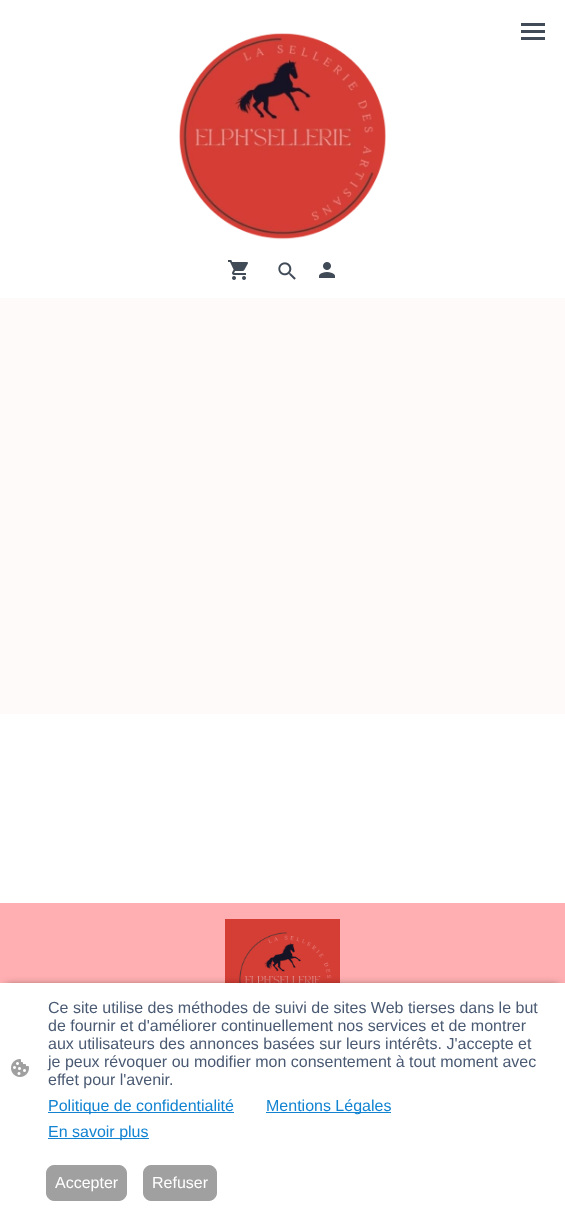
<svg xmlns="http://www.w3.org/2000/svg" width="565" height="1209">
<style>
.a{font:16px Liberation Sans;fill:#4a5a73}
.b{font:16px Liberation Sans;fill:#1183d1}
.c{font:16px Liberation Sans;fill:#fff}
</style>
<rect width="100%" height="100%" fill="#fff"/>
<path fill="#414b58" d="M521 23h24v3H521z"/>
<path fill="#414b58" d="M521 30h24v3H521z"/>
<path fill="#414b58" d="M521 37h24v3H521z"/>
<image href="1.png" x="228" y="260" width="20" height="20"/>
<image href="2.png" x="278" y="262" width="18" height="18"/>
<image href="3.png" x="319" y="262" width="16" height="16"/>
<image href="4.png" x="179" y="33" width="207" height="207"/>
<path fill="#fffafa" d="M0 298h565v416H0z"/>
<path fill="#ffafb1" d="M0 903h565v80H0z"/>
<image href="5.png" x="225" y="919" width="115" height="64"/>
<path fill="#000000a1" filter="blur(4px)" d="M6 986h553v214H6z"/>
<path fill="#fff" d="M0 983h565v226H0z"/>
<image href="6.png" x="11" y="1059" width="18" height="18"/>
<path fill="#1183d1" d="M48 1112h186v1H48z"/>
<path fill="#1183d1" d="M266 1112h125v1H266z"/>
<path fill="#1183d1" d="M48 1138h101v1H48z"/>
<rect fill="#a0a0a0" stroke="#a0a0a0" x="46.5" y="1165.5" width="80" height="35" rx="7.5"/>
<rect fill="#a0a0a0" stroke="#a0a0a0" x="143.5" y="1165.5" width="73" height="35" rx="7.5"/>
<text class="a" x="48" y="1013">Ce site utilise des méthodes de suivi de sites Web tierses dans le but</text>
<text class="a" x="48" y="1031">de fournir et d'améliorer continuellement nos services et de montrer</text>
<text class="a" x="48" y="1049">aux utilisateurs des annonces basées sur leurs intérêts. J'accepte et</text>
<text class="a" x="48" y="1067">je peux révoquer ou modifier mon consentement à tout moment avec</text>
<text class="a" x="48" y="1085">effet pour l'avenir.</text>
<text class="b" x="48" y="1111">Politique de confidentialité</text>
<text class="b" x="266" y="1111">Mentions Légales</text>
<text class="b" x="48" y="1137">En savoir plus</text>
<text class="c" x="55" y="1188">Accepter</text>
<text class="c" x="152" y="1188">Refuser</text>
</svg>
